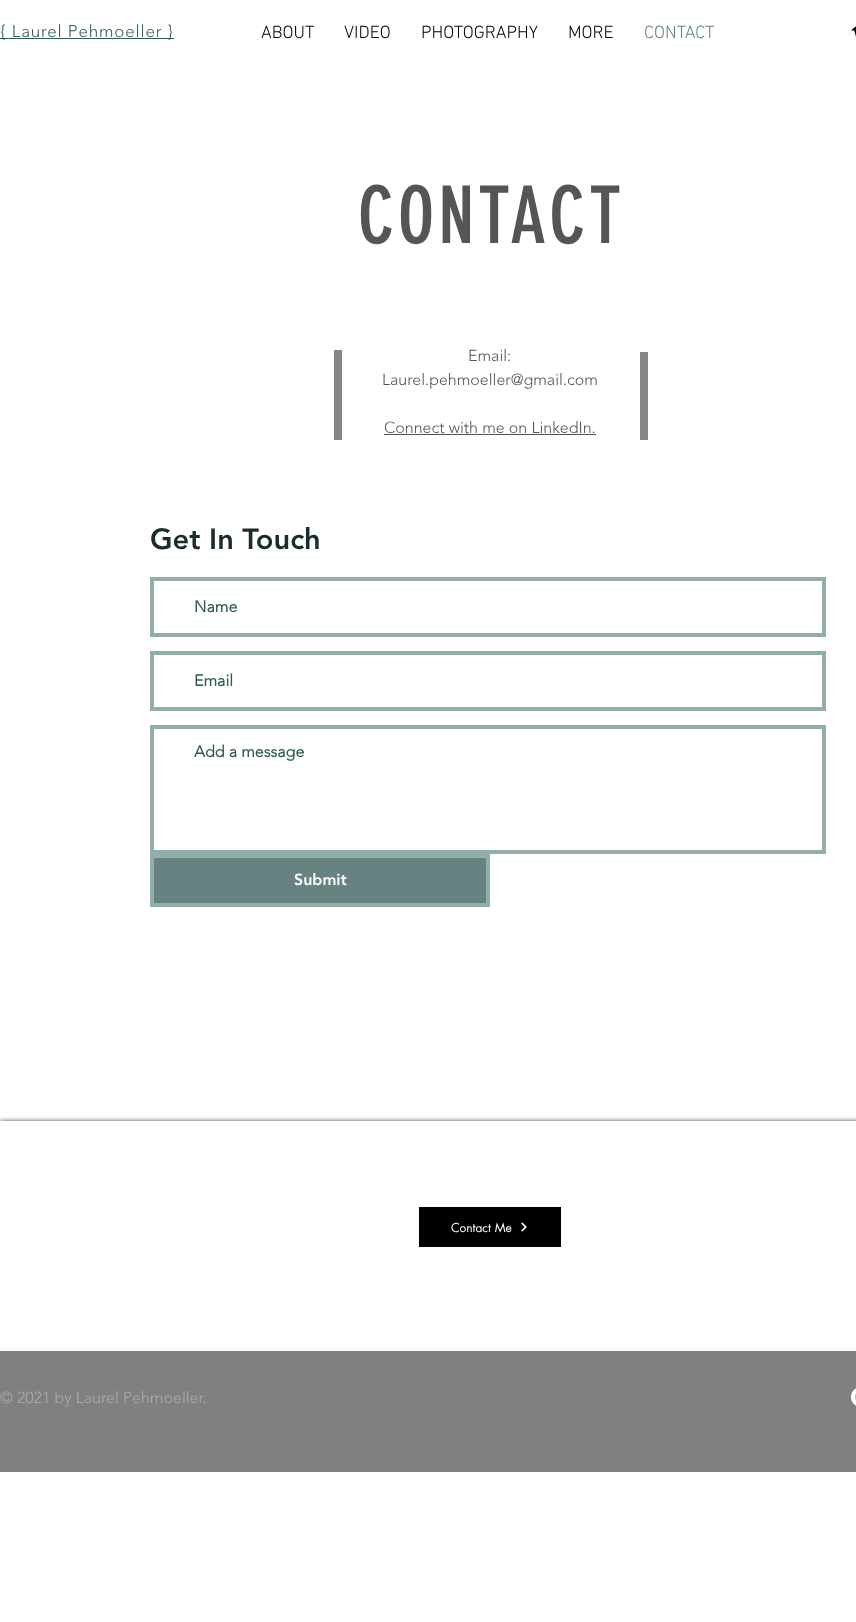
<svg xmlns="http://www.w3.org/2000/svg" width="856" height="1622">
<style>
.a{font:300 17px 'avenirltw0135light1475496';letter-spacing:0.85px;fill:#325a57}
.b{font:300 18px 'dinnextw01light';fill:#000}
.c{font:300 18px 'dinnextw01light';fill:#668381}
.d{font:78px 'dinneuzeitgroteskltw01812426';letter-spacing:4px;fill:#555}
.e{font:300 16px 'avenirltw0135light1475496';fill:#555}
.f{font:900 29px 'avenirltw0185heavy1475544';fill:#192d2c}
.g{font:bold 16px 'avenirltw0135light1475496';fill:#325a57}
.h{font:900 16px 'avenirltw0185heavy1475544';fill:#fff}
.i{font:12px futura;fill:#fff}
.j{font:300 16px 'avenirltw0135light1475496';fill:#aaa}
</style>
<defs>
<clipPath id="clip1"><path d="M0 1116h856v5H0z"/></clipPath>
</defs>
<rect width="100%" height="100%" fill="#fff"/>
<path fill="#325a57" d="M0 38h174v1H0z"/>
<image href="1.png" x="851" y="26" width="5" height="11"/>
<path fill="#868686" d="M334 350h8v90H334z"/>
<path fill="#555" d="M384 434h212v1H384z"/>
<path fill="#868686" d="M640 352h8v88H640z"/>
<path fill="none" stroke="#93adab" stroke-width="4" d="M152 579h672v56H152z"/>
<path fill="none" stroke="#93adab" stroke-width="4" d="M152 653h672v56H152z"/>
<path fill="none" stroke="#93adab" stroke-width="4" d="M152 727h672v125H152z"/>
<path fill="#668381" stroke="#93adab" stroke-width="4" d="M152 856h336v49H152z"/>
<g clip-path="url(#clip1)">
<path fill="#000000b3" filter="blur(2.5px)" d="M0 1121h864v344H0z"/>
</g>
<path fill="#000" d="M419 1207h142v40H419z"/>
<image href="2.png" x="521" y="1222" width="6" height="10"/>
<path fill="#808080" d="M0 1351h856v121H0z"/>
<image href="3.png" x="851" y="1388" width="5" height="18"/>
<text class="a" x="0" y="37">{ Laurel Pehmoeller }</text>
<text class="b" x="261" y="38">ABOUT</text>
<text class="b" x="344" y="38">VIDEO</text>
<text class="b" x="421" y="38">PHOTOGRAPHY</text>
<text class="b" x="568" y="38">MORE</text>
<text class="c" x="644" y="38">CONTACT</text>
<text class="d" x="358" y="243">CONTACT</text>
<text class="e" x="468" y="361">Email:</text>
<text class="e" x="382" y="385">Laurel.pehmoeller@gmail.com</text>
<text class="e" x="384" y="433">Connect with me on LinkedIn.</text>
<text class="f" x="150" y="549">Get In Touch</text>
<text class="g" x="194" y="612">Name</text>
<text class="g" x="194" y="686">Email</text>
<text class="g" x="194" y="757">Add a message</text>
<text class="h" x="294" y="885">Submit</text>
<text class="i" x="451" y="1232">Contact Me</text>
<text class="j" x="0" y="1403">© 2021 by Laurel Pehmoeller.</text>
</svg>
